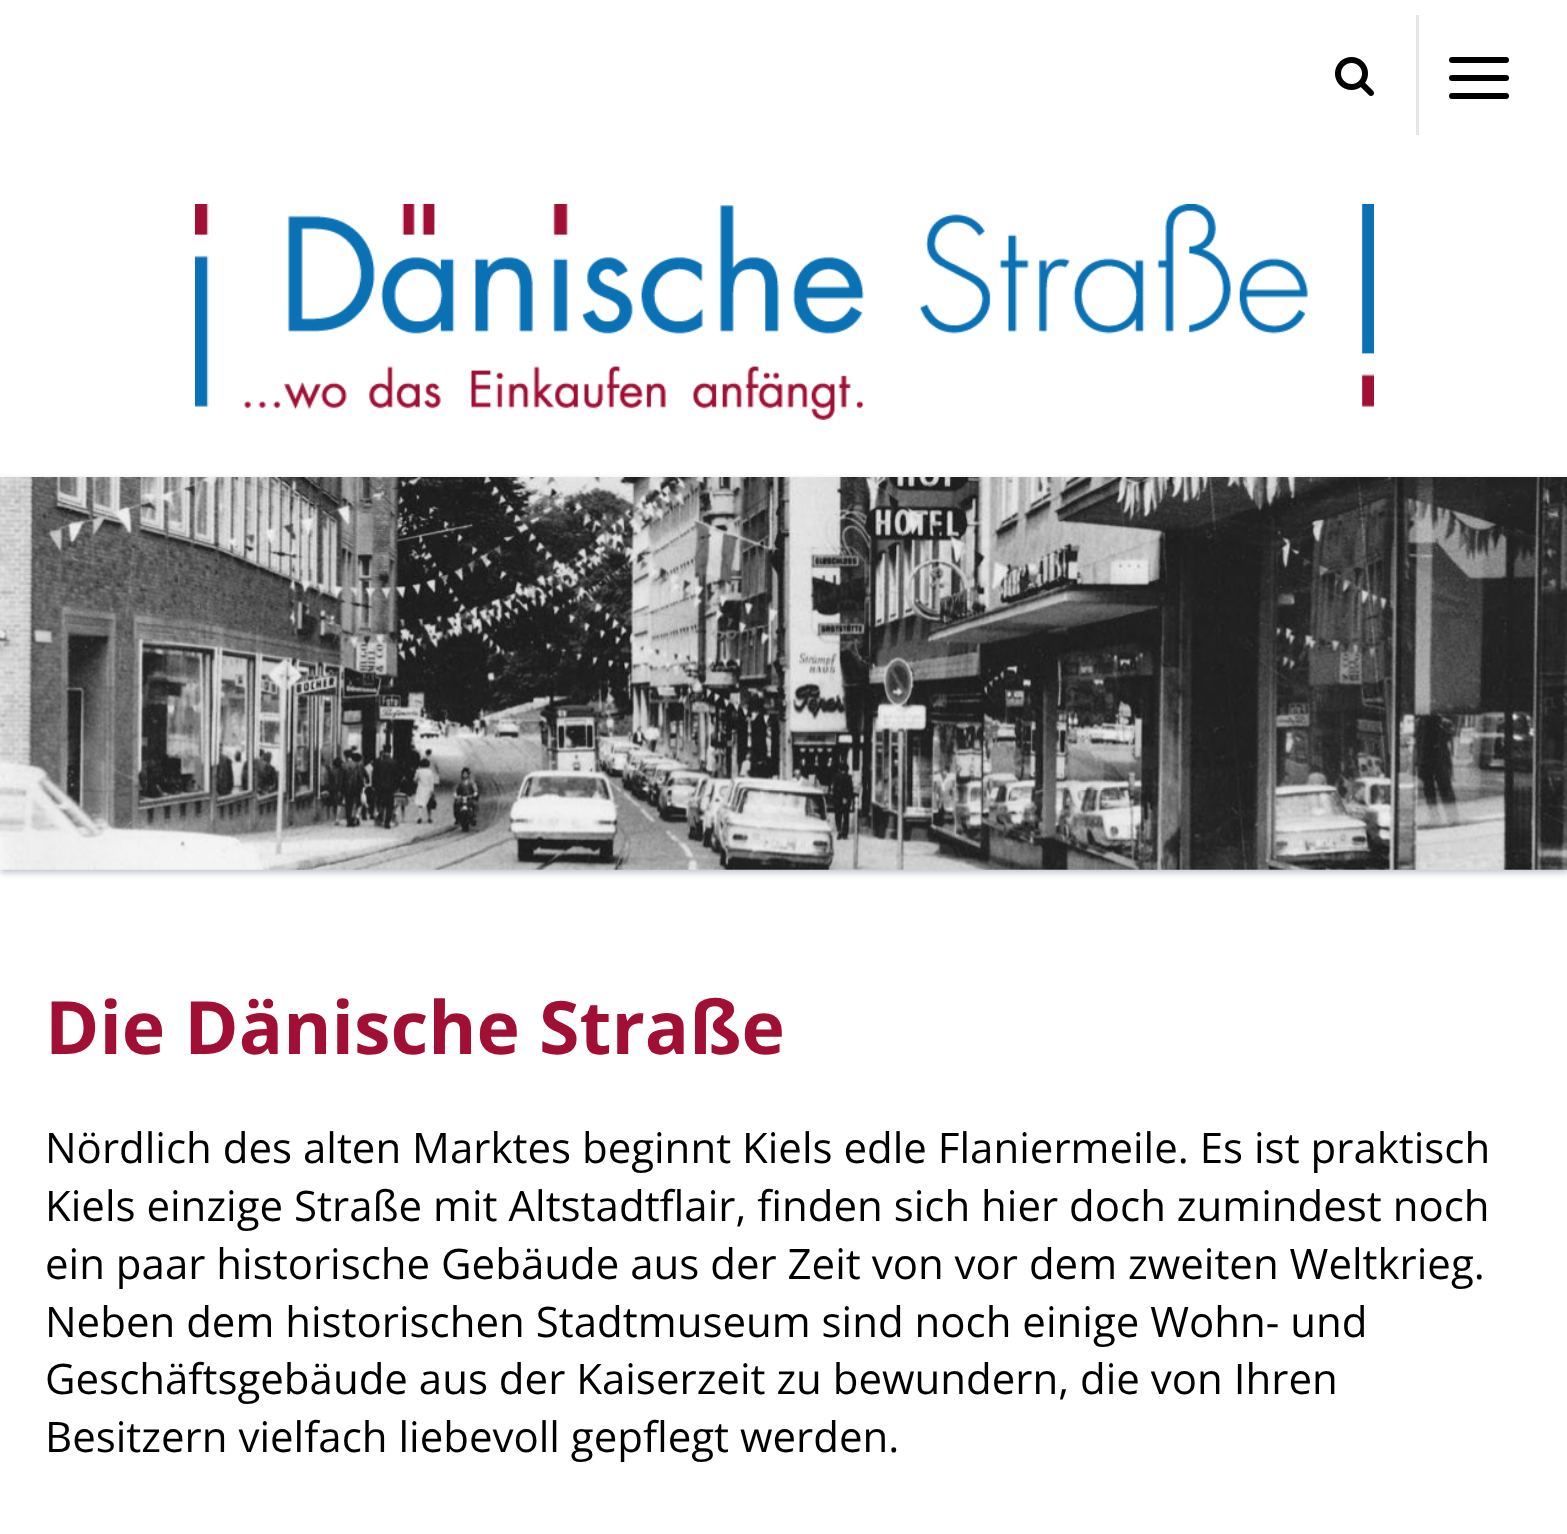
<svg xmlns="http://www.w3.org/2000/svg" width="1567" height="1534">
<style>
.a{font:bold 73.5px Open Sans;fill:#a10f35}
.b{font:42px Open Sans;fill:#000}
</style>
<rect width="100%" height="100%" fill="#fff"/>
<image href="1.png" x="1335" y="57" width="39" height="39"/>
<path fill="#e6e6e6" d="M1416 15h3v120H1416z"/>
<rect fill="#000" x="1449" y="75" width="60" height="6" rx="3"/>
<rect fill="#000" x="1449" y="57" width="60" height="6" rx="3"/>
<rect fill="#000" x="1449" y="93" width="60" height="6" rx="3"/>
<image href="2.png" x="195" y="204" width="1179" height="216"/>
<path fill="#2b3b5d4a" filter="blur(3px)" d="M0 480h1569v393H0z"/>
<image href="3.png" x="0" y="477" width="1567" height="393"/>
<text class="a" x="45" y="1054">Die Dänische Straße</text>
<text class="b" x="45" y="1163">Nördlich des alten Marktes beginnt Kiels edle Flaniermeile. Es ist praktisch</text>
<text class="b" x="45" y="1221">Kiels einzige Straße mit Altstadtflair, finden sich hier doch zumindest noch</text>
<text class="b" x="45" y="1279">ein paar historische Gebäude aus der Zeit von vor dem zweiten Weltkrieg.</text>
<text class="b" x="45" y="1337">Neben dem historischen Stadtmuseum sind noch einige Wohn- und</text>
<text class="b" x="45" y="1394">Geschäftsgebäude aus der Kaiserzeit zu bewundern, die von Ihren</text>
<text class="b" x="45" y="1452">Besitzern vielfach liebevoll gepflegt werden.</text>
</svg>
